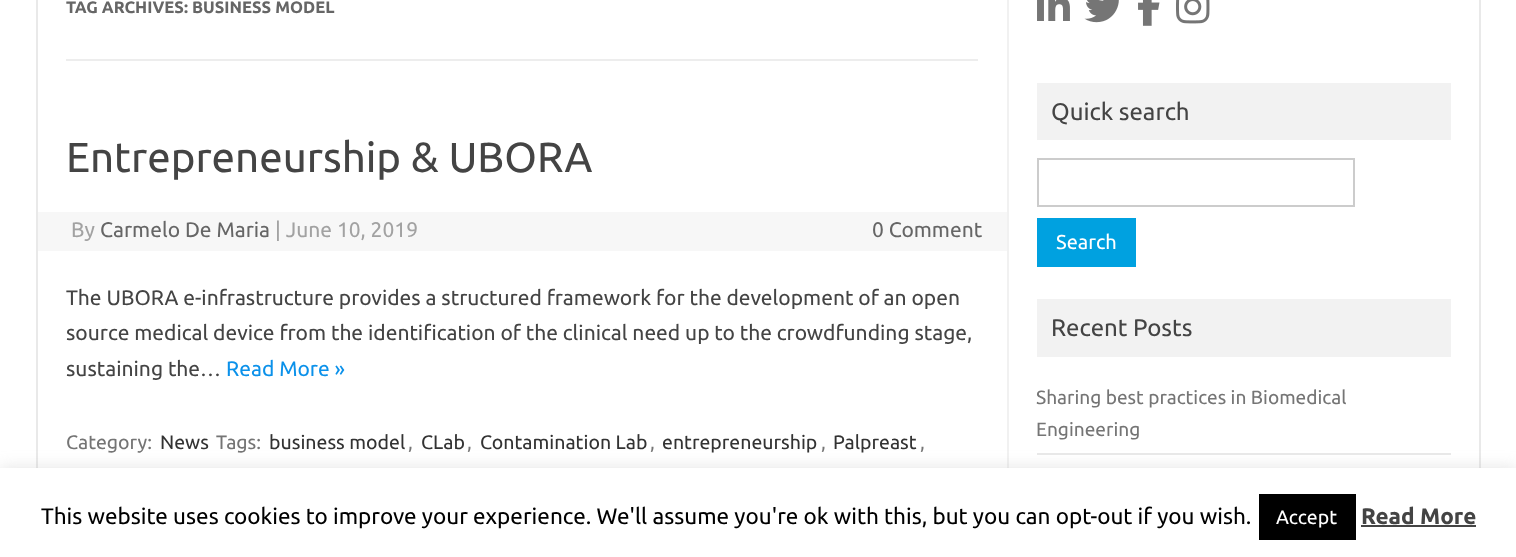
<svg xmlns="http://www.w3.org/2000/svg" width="1516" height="557">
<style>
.a{font:bold 16.5px Ubuntu;fill:#666}
.b{font:42px Ubuntu;fill:#444}
.c{font:21px Ubuntu;fill:#a2a2a2}
.d{font:21px Ubuntu;fill:#666}
.e{font:21px Ubuntu;fill:#444}
.f{font:21px Ubuntu;fill:#0b91ea}
.g{font:19.5px Ubuntu;fill:#757575}
.h{font:19.5px Ubuntu;fill:#333}
.i{font:24px Ubuntu;fill:#444}
.j{font:20px Ubuntu;fill:#fff}
.k{font:19.1px Ubuntu;fill:#757575}
.l{font:22.5px Ubuntu;fill:#000}
.m{font:19.5px Ubuntu;fill:#fff}
.n{font:bold 22.5px Ubuntu;fill:#444}
</style>
<rect width="100%" height="100%" fill="#fff"/>
<path fill="none" stroke="#e9e9e9" stroke-width="2" d="M37 -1h1443v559H37z"/>
<path fill="#f1f1f1" d="M1007 0h2v468H1007z"/>
<path fill="#ededed" d="M66 59h912v2H66z"/>
<path fill="#f7f7f7" d="M38 212h969v39H38z"/>
<image href="1.png" x="1037" y="0" width="33" height="21"/>
<image href="2.png" x="1084" y="0" width="35" height="23"/>
<image href="3.png" x="1138" y="0" width="22" height="26"/>
<image href="4.png" x="1176" y="0" width="34" height="24"/>
<path fill="#f2f2f2" d="M1037 83h414v57H1037z"/>
<path fill="none" stroke="#ccc" stroke-width="2" d="M1038 159h316v47H1038z"/>
<path fill="#00a1e0" d="M1037 218h99v49H1037z"/>
<path fill="#f2f2f2" d="M1037 299h414v58H1037z"/>
<path fill="#e9e9e9" d="M1037 453h414v2H1037z"/>
<path fill="#acabab4d" filter="blur(7.5px)" d="M0 467h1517v90H0z"/>
<path fill="#fff" d="M0 468h1516v89H0z"/>
<path fill="#000" d="M1259 494h97v46H1259z"/>
<path fill="#444" d="M1361 525h115v2H1361z"/>
<text class="a" x="66" y="13">TAG ARCHIVES: BUSINESS MODEL</text>
<text class="b" x="66" y="172">Entrepreneurship &amp; UBORA</text>
<text class="c" x="71" y="237">By</text>
<text class="d" x="100" y="237">Carmelo De Maria</text>
<text class="c" x="275" y="237">| June 10, 2019</text>
<text class="d" x="872" y="237">0 Comment</text>
<text class="e" x="66" y="305">The UBORA e-infrastructure provides a structured framework for the development of an open</text>
<text class="e" x="66" y="340">source medical device from the identification of the clinical need up to the crowdfunding stage,</text>
<text class="e" x="66" y="376">sustaining the…</text>
<text class="f" x="226" y="376">Read More »</text>
<text class="g" x="66" y="449">Category:</text>
<text class="h" x="160" y="449">News</text>
<text class="g" x="216" y="449">Tags:</text>
<text class="h" x="269" y="449">business model</text>
<text class="g" x="408" y="449">,</text>
<text class="h" x="421" y="449">CLab</text>
<text class="g" x="467" y="449">,</text>
<text class="h" x="480" y="449">Contamination Lab</text>
<text class="g" x="650" y="449">,</text>
<text class="h" x="662" y="449">entrepreneurship</text>
<text class="g" x="821" y="449">,</text>
<text class="h" x="833" y="449">Palpreast</text>
<text class="g" x="920" y="449">,</text>
<text class="i" x="1051" y="120">Quick search</text>
<text class="j" x="1056" y="249">Search</text>
<text class="i" x="1051" y="336">Recent Posts</text>
<text class="k" x="1036" y="404">Sharing best practices in Biomedical</text>
<text class="k" x="1036" y="436">Engineering</text>
<text class="l" x="41" y="524">This website uses cookies to improve your experience. We'll assume you're ok with this, but you can opt-out if you wish.</text>
<text class="m" x="1276" y="524">Accept</text>
<text class="n" x="1361" y="524">Read More</text>
</svg>
